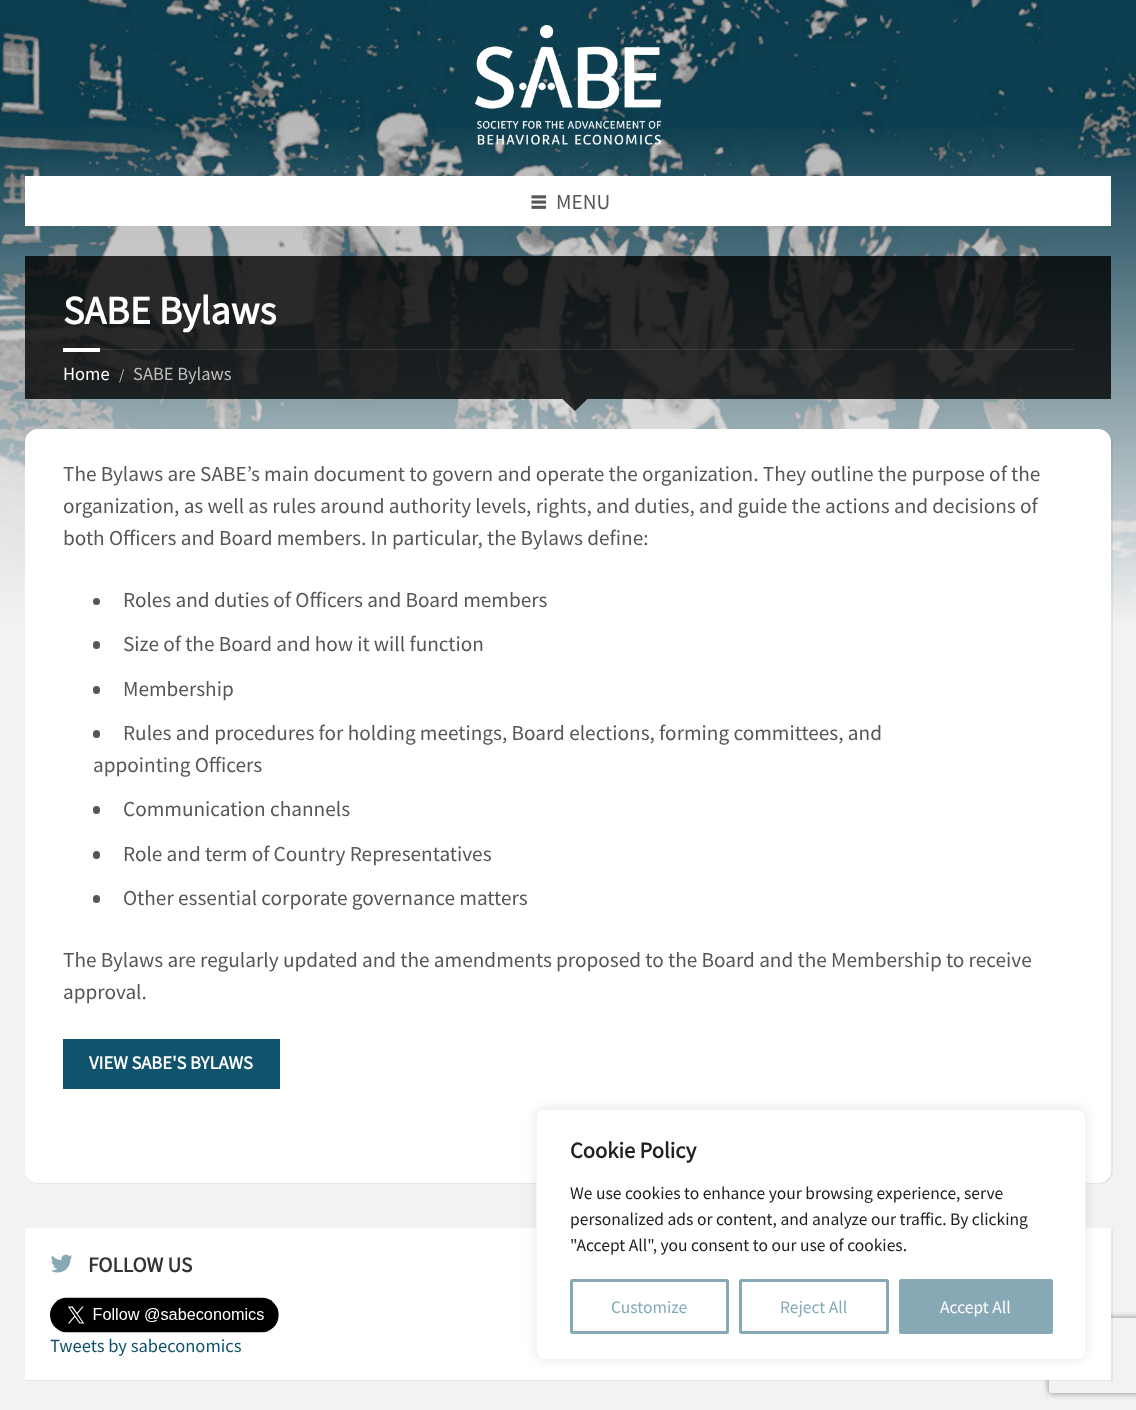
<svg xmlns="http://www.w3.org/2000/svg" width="1136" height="1410">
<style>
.a{font:21.25px Source Sans Pro;fill:#565656}
.b{font:bold 40px Source Sans Pro;fill:#fff}
.c{font:18.5px Source Sans Pro;fill:#fff}
.d{font:15px Source Sans Pro;fill:#bebebe}
.e{font:18.5px Source Sans Pro;fill:#bebebe}
.f{font:bold 18.5px Source Sans Pro;fill:#fff}
.g{font:bold 21.25px Source Sans Pro;fill:#333}
.h{font:18.5px Source Sans Pro;fill:#10536d}
.i{font:bold 22.5px Source Sans Pro;fill:#212121}
.j{font:17.5px Source Sans Pro;fill:#212121}
.k{font:17.5px Source Sans Pro;fill:#87a9b5}
.l{font:17.5px Source Sans Pro;fill:#fff}
</style>
<defs>
<clipPath id="clip1"><path d="M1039 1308h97v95h-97zm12.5 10h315c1.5 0 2.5 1 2.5 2.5v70c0 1.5-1 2.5-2.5 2.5h-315c-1.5 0-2.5-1-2.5-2.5v-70c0-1.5 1-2.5 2.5-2.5z" clip-rule="evenodd"/></clipPath>
</defs>
<rect width="100%" height="100%" fill="#f2f2f2"/>
<image href="1.png" x="0" y="0" width="1136" height="625"/>
<image href="2.png" x="475" y="25" width="187" height="120"/>
<path fill="#fff" d="M25 176h1086v50H25z"/>
<image href="3.png" x="531" y="195" width="16" height="14"/>
<path fill="#000000cc" d="M25 256h1086v143H25z"/>
<path fill="#ffffff1a" d="M100 349h974v1H100z"/>
<path fill="#fff" d="M63 348h37v4H63z"/>
<path fill="#000000cc" d="M562.5 399h25l-12.5 12z"/>
<path fill="#0000000d" d="M29 1179c2 3 6 5 10 5h1061c7 0 13-6 13-13v-728c0-4-2-8-5-10c2 2 3 5 3 8v729c0 7-5 12-12 12h-1061c-4 0-7-1-9-3z"/>
<rect fill="#fff" x="25" y="429" width="1086" height="754" rx="13"/>
<circle fill="#565656" cx="96.5" cy="601.5" r="3.5"/>
<rect fill="#565656" x="93" y="641" width="7" height="8" rx="3.5"/>
<rect fill="#565656" x="93" y="686" width="7" height="8" rx="3.5"/>
<rect fill="#565656" x="93" y="730" width="7" height="8" rx="3.5"/>
<rect fill="#565656" x="93" y="806" width="7" height="8" rx="3.5"/>
<rect fill="#565656" x="93" y="851" width="7" height="8" rx="3.5"/>
<rect fill="#565656" x="93" y="895" width="7" height="8" rx="3.5"/>
<path fill="#10536d" d="M63 1039h217v50H63z"/>
<g clip-path="url(#clip1)">
<rect fill="#808080" filter="blur(3px)" x="1049" y="1318" width="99" height="75" rx="2.5"/>
</g>
<path fill="#0000000d" d="M26 1380v1h1087v-152h-2v151z"/>
<path fill="#fff" d="M25 1228h1086v152H25z"/>
<image href="4.png" x="50" y="1254" width="23" height="19"/>
<image href="5.png" x="50" y="1297" width="229" height="36"/>
<rect fill="#acabab4d" filter="blur(6px)" x="536" y="1108" width="550" height="251" rx="8"/>
<rect fill="#fff" stroke="#f4f4f4" x="536.5" y="1109.5" width="549" height="250" rx="7.5"/>
<rect fill="none" stroke="#87a9b5" stroke-width="3" x="571.5" y="1280.5" width="156" height="52" rx="1"/>
<rect fill="none" stroke="#87a9b5" stroke-width="3" x="740.5" y="1280.5" width="147" height="52" rx="1"/>
<rect fill="#87a9b5" stroke="#87a9b5" stroke-width="3" x="900.5" y="1280.5" width="151" height="52" rx="1"/>
<text class="a" x="556" y="209">MENU</text>
<text class="b" x="63" y="324">SABE Bylaws</text>
<text class="c" x="63" y="380">Home</text>
<text class="d" x="119" y="380">/</text>
<text class="e" x="133" y="380">SABE Bylaws</text>
<text class="a" x="63" y="481">The Bylaws are SABE’s main document to govern and operate the organization. They outline the purpose of the</text>
<text class="a" x="63" y="513">organization, as well as rules around authority levels, rights, and duties, and guide the actions and decisions of</text>
<text class="a" x="63" y="545">both Officers and Board members. In particular, the Bylaws define:</text>
<text class="a" x="123" y="607">Roles and duties of Officers and Board members</text>
<text class="a" x="123" y="651">Size of the Board and how it will function</text>
<text class="a" x="123" y="696">Membership</text>
<text class="a" x="123" y="740">Rules and procedures for holding meetings, Board elections, forming committees, and</text>
<text class="a" x="93" y="772">appointing Officers</text>
<text class="a" x="123" y="816">Communication channels</text>
<text class="a" x="123" y="861">Role and term of Country Representatives</text>
<text class="a" x="123" y="905">Other essential corporate governance matters</text>
<text class="a" x="63" y="967">The Bylaws are regularly updated and the amendments proposed to the Board and the Membership to receive</text>
<text class="a" x="63" y="999">approval.</text>
<text class="f" x="89" y="1069">VIEW SABE'S BYLAWS</text>
<text class="g" x="88" y="1272">FOLLOW US</text>
<text class="h" x="50" y="1352">Tweets by sabeconomics</text>
<text class="i" x="570" y="1158">Cookie Policy</text>
<text class="j" x="570" y="1199">We use cookies to enhance your browsing experience, serve</text>
<text class="j" x="570" y="1225">personalized ads or content, and analyze our traffic. By clicking</text>
<text class="j" x="570" y="1251">"Accept All", you consent to our use of cookies.</text>
<text class="k" x="611" y="1313">Customize</text>
<text class="k" x="780" y="1313">Reject All</text>
<text class="l" x="940" y="1313">Accept All</text>
</svg>
